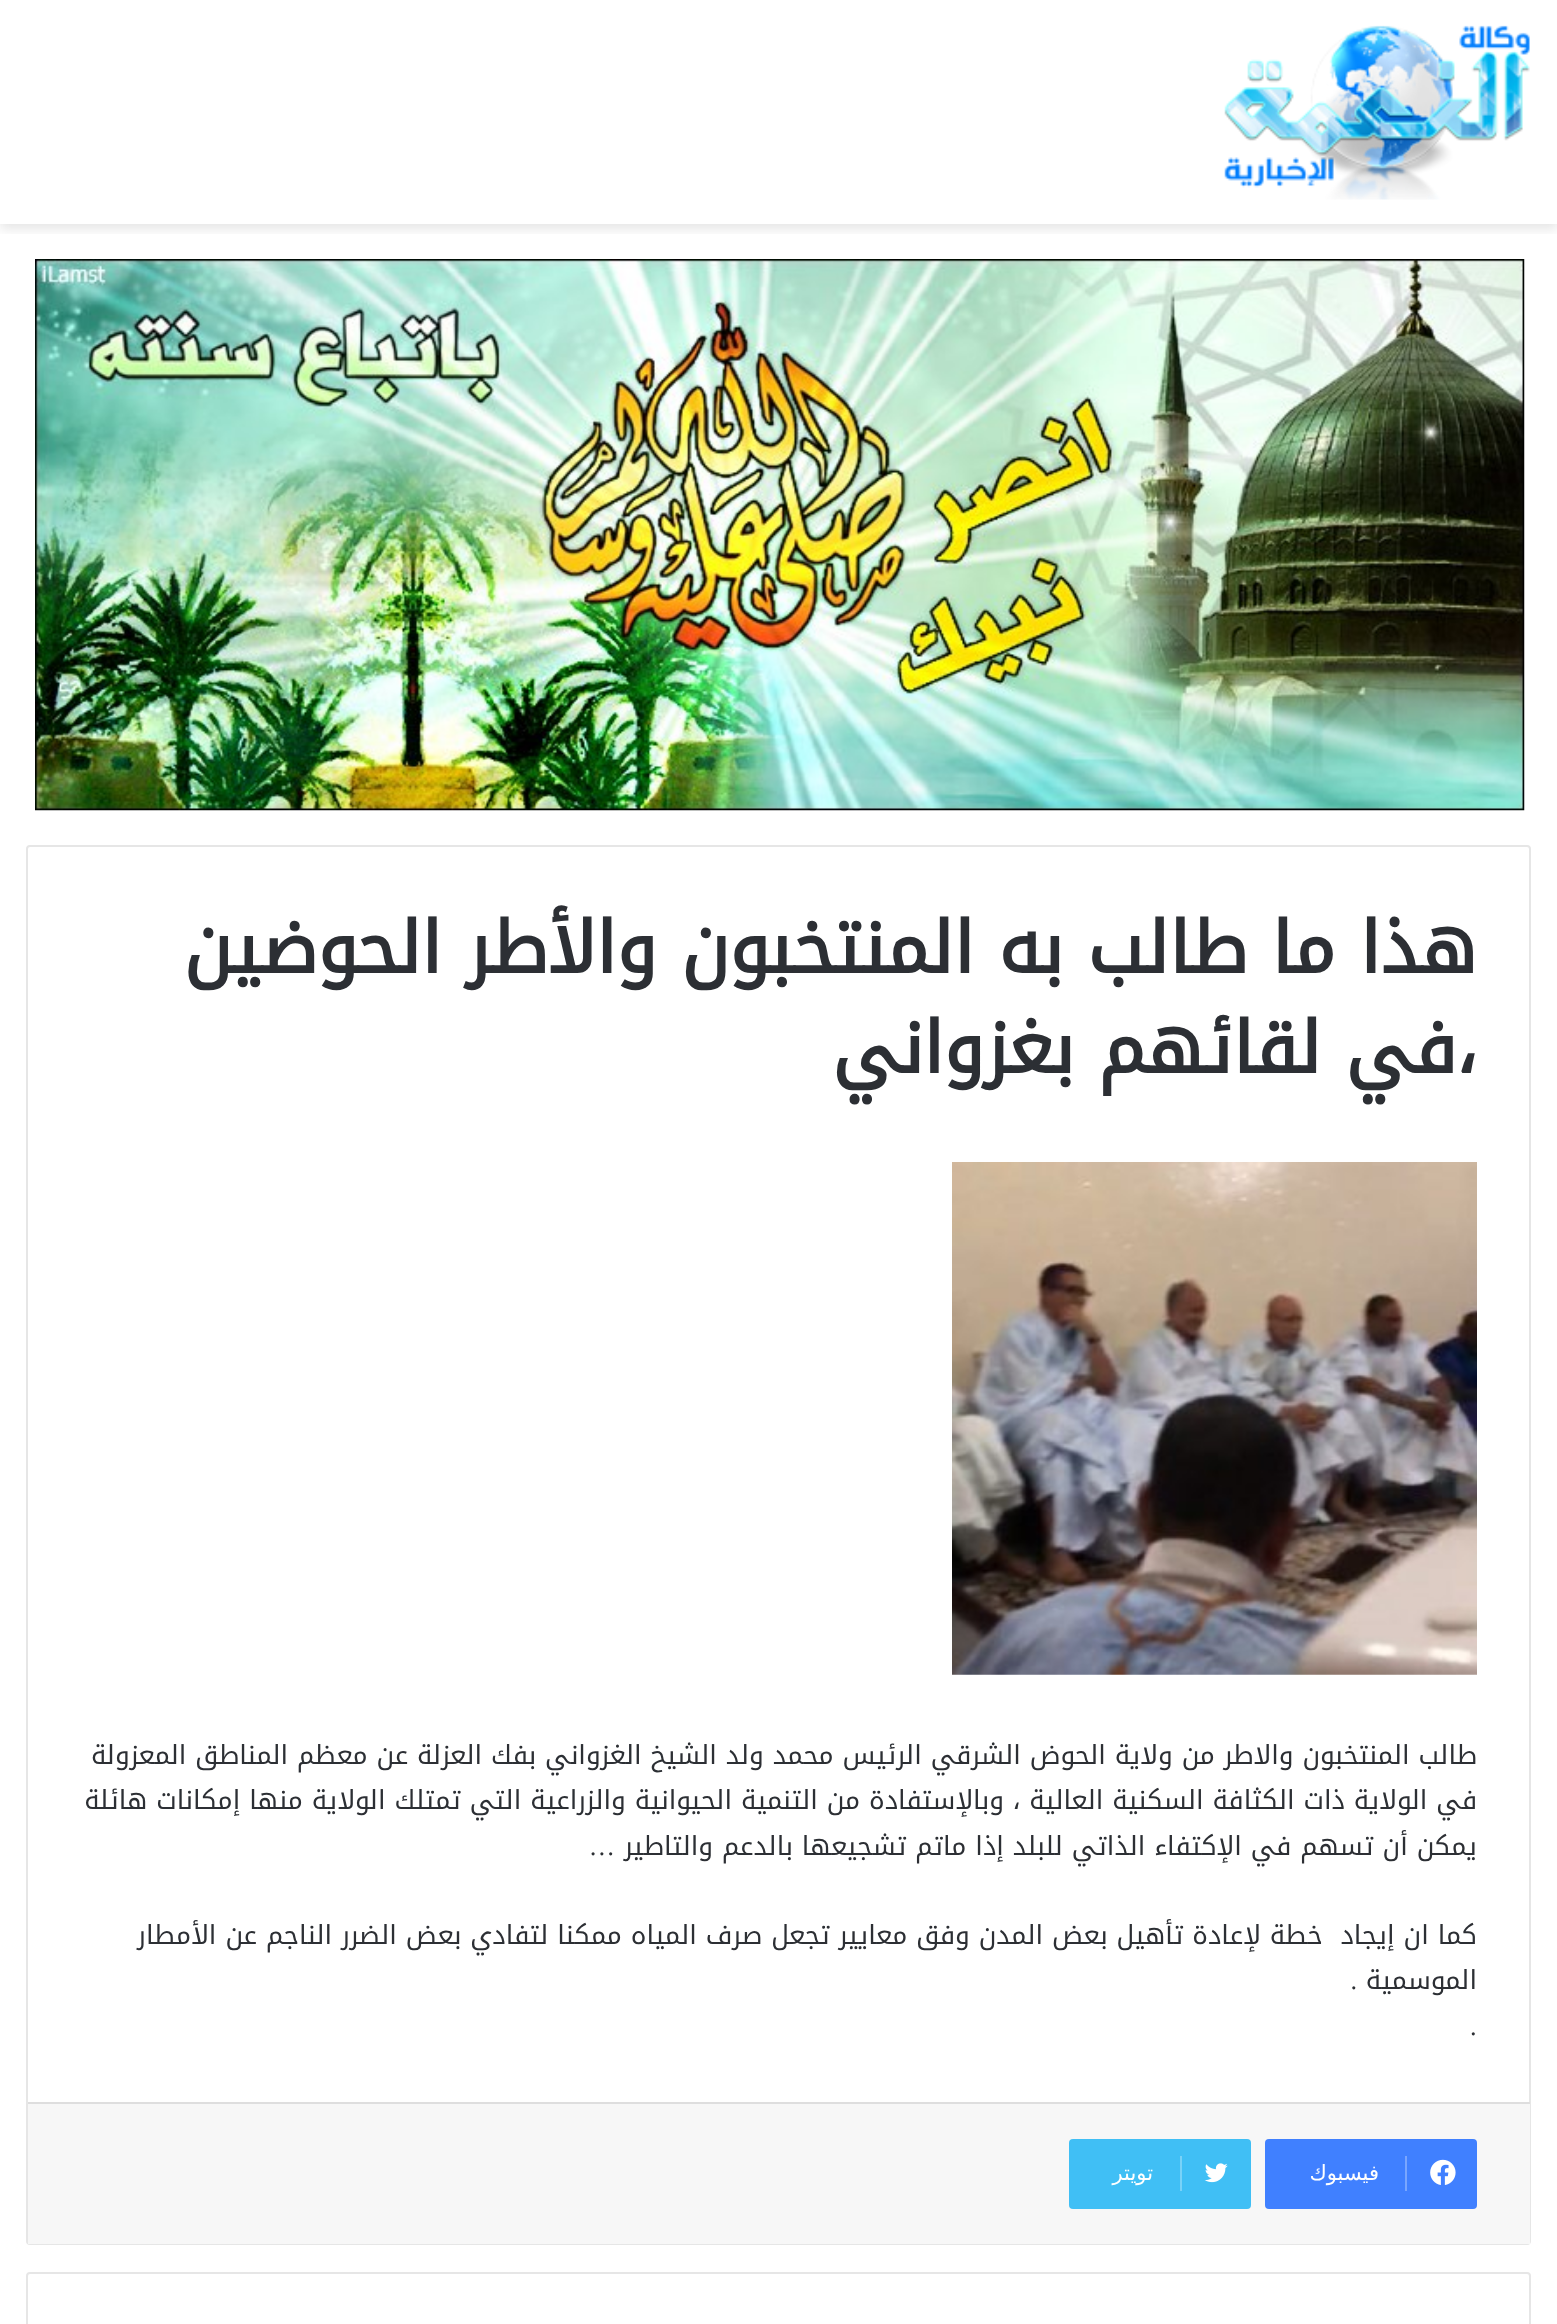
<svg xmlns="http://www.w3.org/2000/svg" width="1557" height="2324">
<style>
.a{font:bold 71.75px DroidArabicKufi;direction:rtl;fill:#2c2f34}
.b{font:26.25px DroidArabicKufi;direction:rtl;fill:#2c2f34}
.c{font:26.25px Liberation Serif;direction:rtl;fill:#2c2f34}
.d{font:26.25px Liberation Serif;fill:#2c2f34}
.e{font:21px DejaVu Sans;direction:rtl;fill:#fff}
</style>
<defs>
<clipPath id="clip1"><path d="M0 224h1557v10H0z"/></clipPath>
</defs>
<rect width="100%" height="100%" fill="#fff"/>
<g clip-path="url(#clip1)">
<path fill="#0000001a" filter="blur(6px)" d="M0 5h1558v224H0z"/>
</g>
<image href="1.png" x="1224" y="25" width="306" height="175"/>
<image href="2.png" x="35" y="259" width="1490" height="552"/>
<rect fill="none" stroke="#e6e6e6" stroke-width="2" x="27" y="846" width="1503" height="1398" rx="3"/>
<image href="3.png" x="952" y="1162" width="525" height="513"/>
<path fill="#f7f7f7" d="M28 2104h1502v140H28z"/>
<path fill="#dedede" d="M28 2102h1502v2H28z"/>
<rect fill="#4080ff" x="1265" y="2139" width="212" height="70" rx="4"/>
<image href="4.png" x="1430" y="2159" width="26" height="26"/>
<path fill="#79a6ff" d="M1405 2156h2v35H1405z"/>
<rect fill="#40bff5" x="1069" y="2139" width="182" height="70" rx="4"/>
<image href="5.png" x="1204" y="2163" width="24" height="20"/>
<path fill="#79d2f8" d="M1180 2156h2v35H1180z"/>
<rect fill="none" stroke="#e6e6e6" stroke-width="2" x="27" y="2273" width="1503" height="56" rx="3"/>
<text class="a" x="1477" y="973">هذا ما طالب به المنتخبون والأطر الحوضين</text>
<text class="a" x="1477" y="1073">،في لقائهم بغزواني</text>
<text class="b" x="1477" y="1764">طالب المنتخبون والاطر من ولاية الحوض الشرقي الرئيس محمد ولد الشيخ الغزواني بفك العزلة عن معظم المناطق المعزولة</text>
<text class="b" x="1477" y="1809">في الولاية ذات الكثافة السكنية العالية ، وبالإستفادة من التنمية الحيوانية والزراعية التي تمتلك الولاية منها إمكانات هائلة</text>
<text class="b" x="1477" y="1855">يمكن أن تسهم في الإكتفاء الذاتي للبلد إذا ماتم تشجيعها بالدعم والتاطير</text>
<text class="c" x="615" y="1855">…</text>
<text class="b" xml:space="preserve" x="1477" y="1944">كما ان إيجاد  خطة لإعادة تأهيل بعض المدن وفق معايير تجعل صرف المياه ممكنا لتفادي بعض الضرر الناجم عن الأمطار</text>
<text class="b" x="1477" y="1989">الموسمية</text>
<text class="c" x="1357" y="1989">.</text>
<text class="d" x="1470" y="2035">.</text>
<text class="e" x="1379" y="2180">فيسبوك</text>
<text class="e" x="1153" y="2180">تويتر</text>
</svg>
